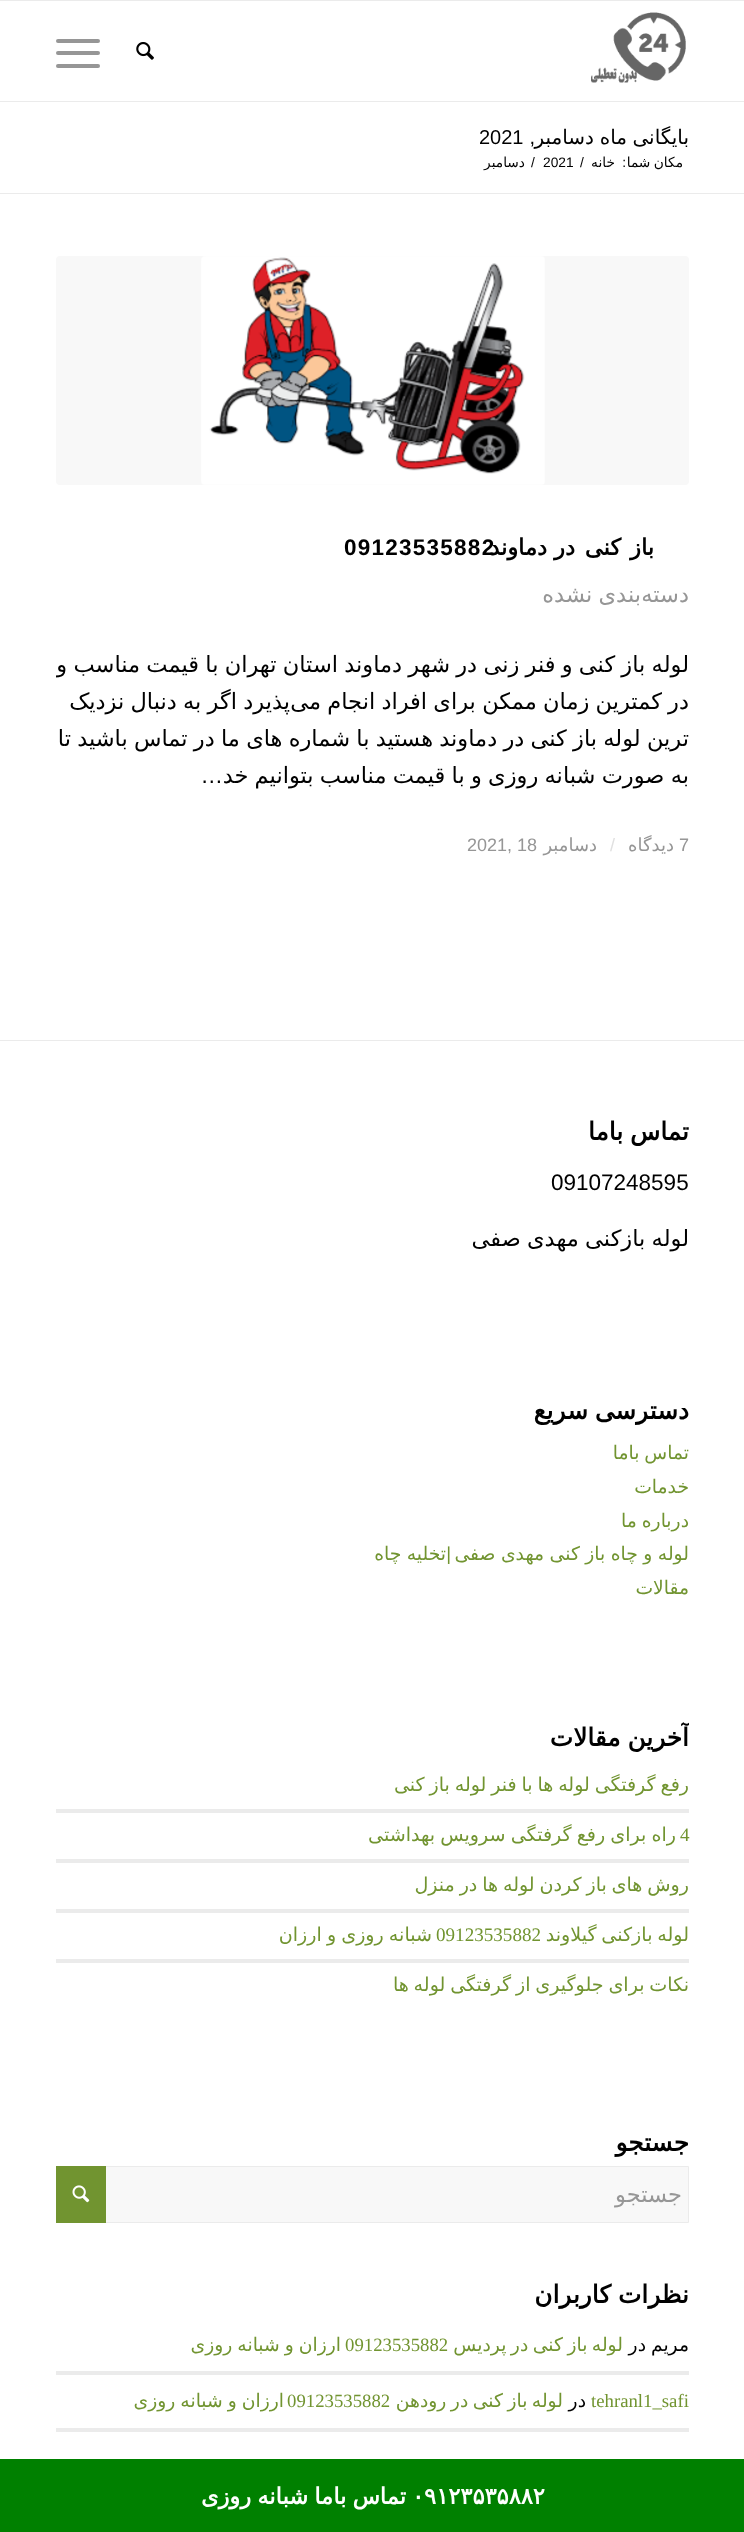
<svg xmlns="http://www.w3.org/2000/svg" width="744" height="2532">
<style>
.a{font:20px DejaVu Sans;direction:rtl;fill:#000}
.b{font:20px Liberation Sans;direction:rtl;fill:#000}
.c{font:20px Liberation Sans;fill:#000}
.d{font:13.75px DejaVu Sans;direction:rtl;fill:#000}
.e{font:13.75px Liberation Sans;direction:rtl;fill:#000}
.f{font:13.75px Liberation Sans;fill:#000}
.g{font:bold 22.5px DejaVu Sans;letter-spacing:1.25px;direction:rtl;fill:#000}
.h{font:bold 22.5px Liberation Sans;letter-spacing:1.25px;fill:#000}
.i{font:22.5px DejaVu Sans;direction:rtl;fill:#969696}
.j{font:22.5px DejaVu Sans;direction:rtl;fill:#000}
.k{font:22.5px Liberation Sans;direction:rtl;fill:#000}
.l{font:18px Liberation Sans;fill:#969696}
.m{font:18px DejaVu Sans;direction:rtl;fill:#969696}
.n{font:18px Liberation Sans;fill:#e0e0e0}
.o{font:bold 24.75px DejaVu Sans;direction:rtl;fill:#000}
.p{font:22.5px Liberation Sans;fill:#000}
.q{font:18.75px DejaVu Sans;direction:rtl;fill:#719430}
.r{font:18.75px Liberation Sans;direction:rtl;fill:#719430}
.s{font:19.1px DejaVu Sans;direction:rtl;fill:#719430}
.t{font:19.1px Liberation Serif;fill:#719430}
.u{font:18.75px DejaVu Sans;direction:rtl;fill:#000}
.v{font:18.75px Liberation Serif;fill:#719430}
.w{font:bold 22.5px DejaVu Sans;fill:#fff}
.x{font:bold 22.5px DejaVu Sans;direction:rtl;fill:#fff}
</style>
<defs>
<clipPath id="clip1"><path d="M56 646h633v149H56z"/></clipPath>
<clipPath id="clip2"><path d="M56 1098h633v180H56z"/></clipPath>
<clipPath id="clip3"><path d="M56 1378h633v226H56z"/></clipPath>
<clipPath id="clip4"><path d="M56 1704h633v305H56z"/></clipPath>
</defs>
<rect width="100%" height="100%" fill="#fff"/>
<path fill="#ebebeb" d="M0 193h744v1H0z"/>
<rect fill="#f8f8f8" x="56" y="256" width="633" height="229" rx="4"/>
<image href="1.png" x="201" y="256" width="344" height="229"/>
<path fill="#ebebeb" d="M0 1040h744v1H0z"/>
<path fill="#ebebeb" d="M56 1809h633v4H56z"/>
<path fill="#ebebeb" d="M56 1859h633v4H56z"/>
<path fill="#ebebeb" d="M56 1909h633v4H56z"/>
<path fill="#ebebeb" d="M56 1959h633v4H56z"/>
<path fill="#f8f8f8" d="M106 2167h582v55H106z"/>
<path fill="none" stroke="#ebebeb" d="M56.5 2166.5h632v56H56.5z"/>
<path fill="#719430" d="M56 2166h50v57H56z"/>
<image href="2.png" x="72" y="2185" width="18" height="18"/>
<path fill="#ebebeb" d="M56 2371h633v4H56z"/>
<path fill="#ebebeb" d="M56 2428h633v4H56z"/>
<path fill="#ebebeb" d="M0 0h744v1H0z"/>
<path fill="#ebebeb" d="M0 101h744v1H0z"/>
<image href="3.png" x="591" y="12" width="95" height="71"/>
<image href="4.png" x="136" y="42" width="18" height="18"/>
<rect fill="#969696" x="56" y="51" width="44" height="4" rx="2"/>
<rect fill="#969696" x="56" y="39" width="44" height="4" rx="2"/>
<rect fill="#969696" x="56" y="64" width="44" height="4" rx="2"/>
<path fill="#008000" d="M0 2459h744v73H0z"/>
<text class="a" x="689" y="144" word-spacing="-1">بایگانی ماه</text>
<text class="a" x="594" y="144">دسامبر</text>
<text class="b" x="535" y="144">,</text>
<text class="c" x="479" y="144">2021</text>
<text class="d" x="683" y="167" word-spacing="-1">مکان شما</text>
<text class="e" x="626" y="167">:</text>
<text class="d" x="615" y="167">خانه</text>
<text class="f" x="580" y="167">/</text>
<text class="f" x="543" y="167">2021</text>
<text class="f" x="531" y="167">/</text>
<text class="d" x="525" y="167">دسامبر</text>
<text class="g" x="654" y="555">باز</text>
<text class="g" x="621" y="555">کنی</text>
<text class="g" x="575" y="555">در</text>
<text class="h" x="344" y="555">09123535882</text>
<text class="g" x="547" y="555">دماوند</text>
<text class="i" x="689" y="602">دسته</text>
<text class="i" x="641" y="602" word-spacing="-0.9">بندی نشده</text>
<g clip-path="url(#clip1)">
<text class="j" x="689" y="672" word-spacing="-0.9">لوله باز کنی و فنر زنی در شهر دماوند استان تهران با قیمت مناسب و</text>
</g>
<text class="j" x="290" y="709" word-spacing="-0.9">پذیرد اگر به دنبال نزدیک</text>
<g clip-path="url(#clip1)">
<text class="j" x="689" y="709" word-spacing="-0.9">در کمترین زمان ممکن برای افراد انجام می</text>
<text class="j" x="689" y="746" word-spacing="-0.9">ترین لوله باز کنی در دماوند هستید با شماره های ما در تماس باشید تا</text>
<text class="j" x="689" y="783" word-spacing="-0.9">به صورت شبانه روزی و با قیمت مناسب بتوانیم خد</text>
</g>
<text class="k" x="223" y="783">…</text>
<text class="l" x="679" y="851">7</text>
<text class="m" x="674" y="851">دیدگاه</text>
<text class="n" x="610" y="851">/</text>
<text class="m" x="597" y="851">دسامبر</text>
<text class="l" x="467" y="851">2021, 18</text>
<text class="o" x="689" y="1140" word-spacing="-1">تماس باما</text>
<text class="p" x="551" y="1190">09107248595</text>
<g clip-path="url(#clip2)">
<text class="j" x="689" y="1246" word-spacing="-0.9">لوله بازکنی مهدی صفی</text>
</g>
<text class="o" x="689" y="1419" word-spacing="-1">دسترسی سریع</text>
<text class="q" x="689" y="1459" word-spacing="-1">تماس باما</text>
<text class="q" x="689" y="1493">خدمات</text>
<text class="q" x="689" y="1527" word-spacing="-1">درباره ما</text>
<g clip-path="url(#clip3)">
<text class="q" x="689" y="1560" word-spacing="-0.5">لوله و چاه باز کنی مهدی صفی</text>
</g>
<text class="r" x="451" y="1560">|</text>
<text class="q" x="446" y="1560" word-spacing="-0.5">تخلیه چاه</text>
<text class="q" x="689" y="1594">مقالات</text>
<g clip-path="url(#clip4)">
<text class="o" x="689" y="1746" word-spacing="-1">آخرین مقالات</text>
<text class="s" x="689" y="1791" word-spacing="-1.25">رفع گرفتگی لوله ها با فنر لوله باز کنی</text>
</g>
<text class="s" x="676" y="1841" word-spacing="-1">راه برای رفع گرفتگی سرویس بهداشتی</text>
<text class="t" x="680" y="1841">4</text>
<g clip-path="url(#clip4)">
<text class="s" x="689" y="1891" word-spacing="-1.25">روش های باز کردن لوله ها در منزل</text>
<text class="s" x="689" y="1941" word-spacing="-1.25">لوله بازکنی گیلاوند</text>
</g>
<text class="t" x="436" y="1941">09123535882</text>
<text class="s" x="432" y="1941" word-spacing="-1">شبانه روزی و ارزان</text>
<g clip-path="url(#clip4)">
<text class="s" x="689" y="1991" word-spacing="-1.25">نکات برای جلوگیری از گرفتگی لوله ها</text>
</g>
<text class="o" x="689" y="2151">جستجو</text>
<text class="i" x="682" y="2202">جستجو</text>
<text class="o" x="689" y="2303" word-spacing="-1">نظرات کاربران</text>
<text class="u" x="689" y="2351">مریم</text>
<text class="u" x="646" y="2351">در</text>
<text class="q" x="623" y="2351" word-spacing="-1.5">لوله باز کنی در پردیس</text>
<text class="v" x="345" y="2351">09123535882</text>
<text class="q" x="341" y="2351" word-spacing="-1">ارزان و شبانه روزی</text>
<text class="v" x="591" y="2407">tehranl1_safi</text>
<text class="u" x="586" y="2407">در</text>
<text class="q" x="563" y="2407" word-spacing="-1.5">لوله باز کنی در رودهن</text>
<text class="v" x="287" y="2407">09123535882</text>
<text class="q" x="284" y="2407" word-spacing="-1">ارزان و شبانه روزی</text>
<text class="w" x="412" y="2504">۰۹۱۲۳۵۳۵۸۸۲</text>
<text class="x" x="406" y="2504" word-spacing="-1">تماس باما شبانه روزی</text>
</svg>
